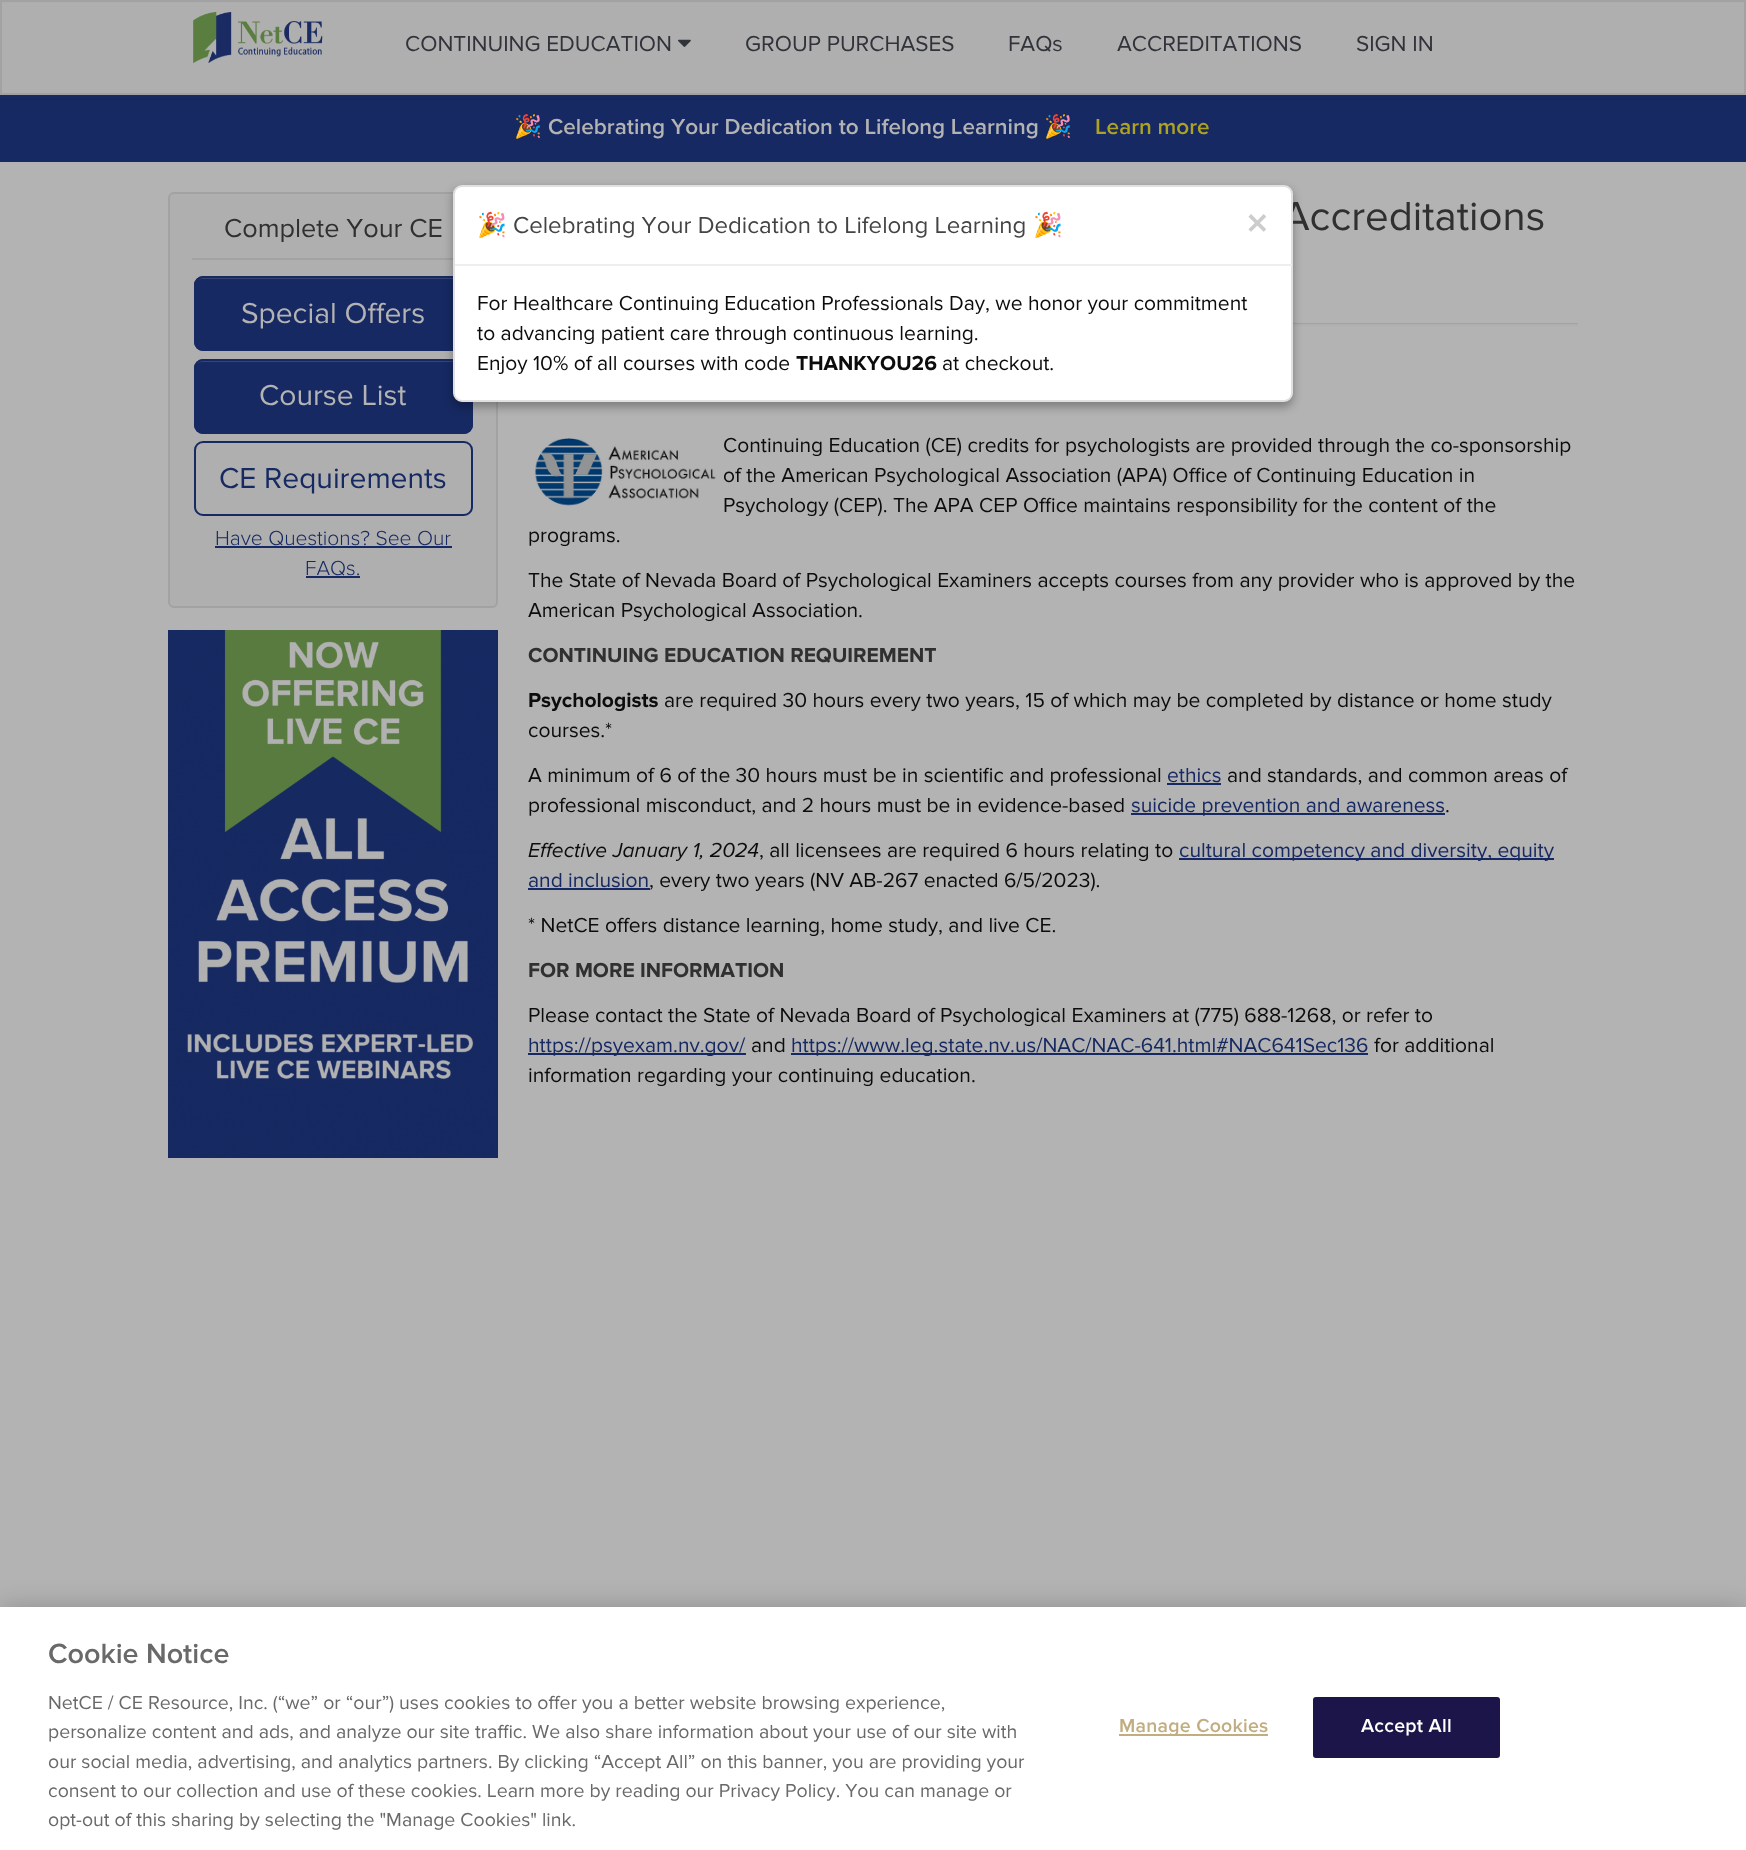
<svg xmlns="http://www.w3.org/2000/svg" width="1746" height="1850">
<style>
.a{font:22.5px Proxima Nova;fill:#303339}
.b{font:bold 22.5px Noto Color Emoji;fill:#b3b3b3}
.c{font:600 22.5px Proxima Nova;fill:#b3b3b3}
.d{font:600 22.5px Proxima Nova;fill:#ada222}
.e{font:27px Proxima Nova;fill:#303030}
.f{font:30px Proxima Nova;fill:#b3b3b3}
.g{font:30px Proxima Nova;fill:#172962}
.h{font:300 21px Proxima Nova;fill:#172962}
.i{font:42px Proxima Nova;fill:#303030}
.j{font:21px Proxima Nova;fill:#0c0c0c}
.k{font:bold 21px Proxima Nova;fill:#0c0c0c}
.l{font:bold 45px Proxima Nova;fill:#ccc}
.m{font:24px Noto Color Emoji;fill:#444}
.n{font:24px Proxima Nova;fill:#444}
.o{font:bold 21px Proxima Nova;fill:#303030}
.p{font:21px Proxima Nova;fill:#172962}
.q{font:italic 21px Proxima Nova;fill:#0c0c0c}
.r{font:600 28.75px Proxima Nova;fill:#696969}
.s{font:19.5px Proxima Nova;fill:#696969}
.t{font:600 19.5px Proxima Nova;letter-spacing:0.25px;fill:#c1ad80}
.u{font:600 19.5px Proxima Nova;letter-spacing:0.25px;fill:#fff}
</style>
<rect width="100%" height="100%" fill="#b3b3b3"/>
<path fill="#172962" d="M0 95h1746v67H0z"/>
<path fill="#4e4e4e1a" filter="blur(2px)" d="M0 2h1746v94H0z"/>
<path fill="#afafaf" d="M2 3h1742v90H2z"/>
<path fill="none" stroke="#a2a2a2" stroke-width="2" d="M1 1h1744v93H1z"/>
<image href="1.png" x="193" y="12" width="130" height="51"/>
<image href="2.png" x="678" y="39" width="13" height="8"/>
<rect fill="#afafaf" stroke="#a2a2a2" stroke-width="2" x="169" y="193" width="328" height="414" rx="5"/>
<path fill="#a2a2a2" d="M192 258h261v2H192z"/>
<rect fill="#172962" x="194" y="276" width="279" height="75" rx="9"/>
<path fill="#364572" d="M202 279h262c4 0 7 3 7 7c0-4-4-8-8-8h-260c-4 0-8 4-8 8c0-4 3-7 7-7z"/>
<rect fill="none" stroke="#172962" stroke-width="2" x="195" y="277" width="277" height="73" rx="8"/>
<rect fill="#172962" x="194" y="359" width="279" height="75" rx="9"/>
<path fill="#364572" d="M202 362h262c4 0 7 3 7 7v-1c0-4-4-8-8-8h-260c-4 0-8 4-8 8v1c0-4 3-7 7-7z"/>
<rect fill="none" stroke="#172962" stroke-width="2" x="195" y="360" width="277" height="73" rx="8"/>
<rect fill="none" stroke="#172962" stroke-width="2" x="195" y="442" width="277" height="73" rx="8"/>
<path fill="#172962" d="M215 546h237v2H215z"/>
<path fill="#172962" d="M306 576h54v2H306z"/>
<image href="3.png" x="168" y="630" width="330" height="528"/>
<path fill="#a2a2a2" d="M1293 323h285v1H1293z"/>
<path fill="#afafaf" d="M1293 324h285v2H1293z"/>
<rect fill="#0000004d" filter="blur(5px)" x="453" y="189" width="840" height="218" rx="9"/>
<image href="4.png" x="535" y="438" width="181" height="68"/>
<path fill="#172962" d="M1167 783h54v2H1167z"/>
<path fill="#172962" d="M1131 813h314v2H1131z"/>
<path fill="#172962" d="M1179 858h375v2H1179z"/>
<path fill="#172962" d="M528 888h122v2H528z"/>
<path fill="#172962" d="M528 1053h218v2H528z"/>
<path fill="#172962" d="M791 1053h577v2H791z"/>
<path fill="#00000033" filter="blur(13.5px)" d="M0 1607h1746v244H0z"/>
<path fill="#fff" d="M0 1607h1746v243H0z"/>
<path fill="#c1ad80" d="M1119 1734h149v2H1119z"/>
<rect fill="#1b1549" stroke="#1b1549" stroke-width="2" x="1314" y="1698" width="185" height="59" rx="2"/>
<text class="a" x="405" y="51">CONTINUING EDUCATION</text>
<text class="a" x="745" y="51">GROUP PURCHASES</text>
<text class="a" x="1008" y="51">FAQs</text>
<text class="a" x="1117" y="51">ACCREDITATIONS</text>
<text class="a" x="1356" y="51">SIGN IN</text>
<text class="b" x="514" y="134">🎉</text>
<text class="c" x="548" y="134">Celebrating Your Dedication to Lifelong Learning</text>
<text class="b" x="1044" y="134">🎉</text>
<text class="d" x="1095" y="134">Learn more</text>
<text class="e" x="224" y="237">Complete Your CE</text>
<text class="f" x="241" y="323">Special Offers</text>
<text class="f" x="259" y="405">Course List</text>
<text class="g" x="219" y="488">CE Requirements</text>
<text class="h" x="215" y="545">Have Questions? See Our</text>
<text class="h" x="305" y="575">FAQs.</text>
<text class="i" x="1282" y="230">Accreditations</text>
<rect fill="#fff" stroke="#e0e0e0" stroke-width="2" x="454" y="186" width="838" height="215" rx="8"/>
<text class="j" x="942" y="370">at checkout.</text>
<text class="k" x="796" y="370">THANKYOU26</text>
<text class="j" x="477" y="370">Enjoy 10% of all courses with code</text>
<text class="j" x="477" y="340">to advancing patient care through continuous learning.</text>
<text class="j" x="477" y="310">For Healthcare Continuing Education Professionals Day, we honor your commitment</text>
<text class="l" x="1246" y="238">×</text>
<text class="m" x="1033" y="233">🎉</text>
<text class="n" x="513" y="233">Celebrating Your Dedication to Lifelong Learning</text>
<text class="m" x="477" y="233">🎉</text>
<path fill="#eee" d="M455 264h837v2H455z"/>
<text class="j" x="723" y="452">Continuing Education (CE) credits for psychologists are provided through the co-sponsorship</text>
<text class="j" x="723" y="482">of the American Psychological Association (APA) Office of Continuing Education in</text>
<text class="j" x="723" y="512">Psychology (CEP). The APA CEP Office maintains responsibility for the content of the</text>
<text class="j" x="528" y="542">programs.</text>
<text class="j" x="528" y="587">The State of Nevada Board of Psychological Examiners accepts courses from any provider who is approved by the</text>
<text class="j" x="528" y="617">American Psychological Association.</text>
<text class="o" x="528" y="662">CONTINUING EDUCATION REQUIREMENT</text>
<text class="k" x="528" y="707">Psychologists</text>
<text class="j" x="664" y="707">are required 30 hours every two years, 15 of which may be completed by distance or home study</text>
<text class="j" x="528" y="737">courses.*</text>
<text class="j" x="528" y="782">A minimum of 6 of the 30 hours must be in scientific and professional</text>
<text class="p" x="1167" y="782">ethics</text>
<text class="j" x="1227" y="782">and standards, and common areas of</text>
<text class="j" x="528" y="812">professional misconduct, and 2 hours must be in evidence-based</text>
<text class="p" x="1131" y="812">suicide prevention and awareness</text>
<text class="j" x="1445" y="812">.</text>
<text class="q" x="528" y="857">Effective January 1, 2024</text>
<text class="j" x="759" y="857">, all licensees are required 6 hours relating to</text>
<text class="p" x="1179" y="857">cultural competency and diversity, equity</text>
<text class="p" x="528" y="887">and inclusion</text>
<text class="j" x="649" y="887">, every two years (NV AB-267 enacted 6/5/2023).</text>
<text class="j" x="528" y="932">* NetCE offers distance learning, home study, and live CE.</text>
<text class="o" x="528" y="977">FOR MORE INFORMATION</text>
<text class="j" x="528" y="1022">Please contact the State of Nevada Board of Psychological Examiners at (775) 688-1268, or refer to</text>
<text class="p" x="528" y="1052">https://psyexam.nv.gov/</text>
<text class="j" x="751" y="1052">and</text>
<text class="p" x="791" y="1052">https://www.leg.state.nv.us/NAC/NAC-641.html#NAC641Sec136</text>
<text class="j" x="1374" y="1052">for additional</text>
<text class="j" x="528" y="1082">information regarding your continuing education.</text>
<text class="r" x="48" y="1663">Cookie Notice</text>
<text class="s" x="48" y="1709">NetCE / CE Resource, Inc. (“we” or “our”) uses cookies to offer you a better website browsing experience,</text>
<text class="s" x="48" y="1738">personalize content and ads, and analyze our site traffic. We also share information about your use of our site with</text>
<text class="s" x="48" y="1768">our social media, advertising, and analytics partners. By clicking “Accept All” on this banner, you are providing your</text>
<text class="s" x="48" y="1797">consent to our collection and use of these cookies. Learn more by reading our Privacy Policy. You can manage or</text>
<text class="s" x="48" y="1826">opt-out of this sharing by selecting the "Manage Cookies" link.</text>
<text class="t" x="1119" y="1732">Manage Cookies</text>
<text class="u" x="1361" y="1732">Accept All</text>
</svg>
